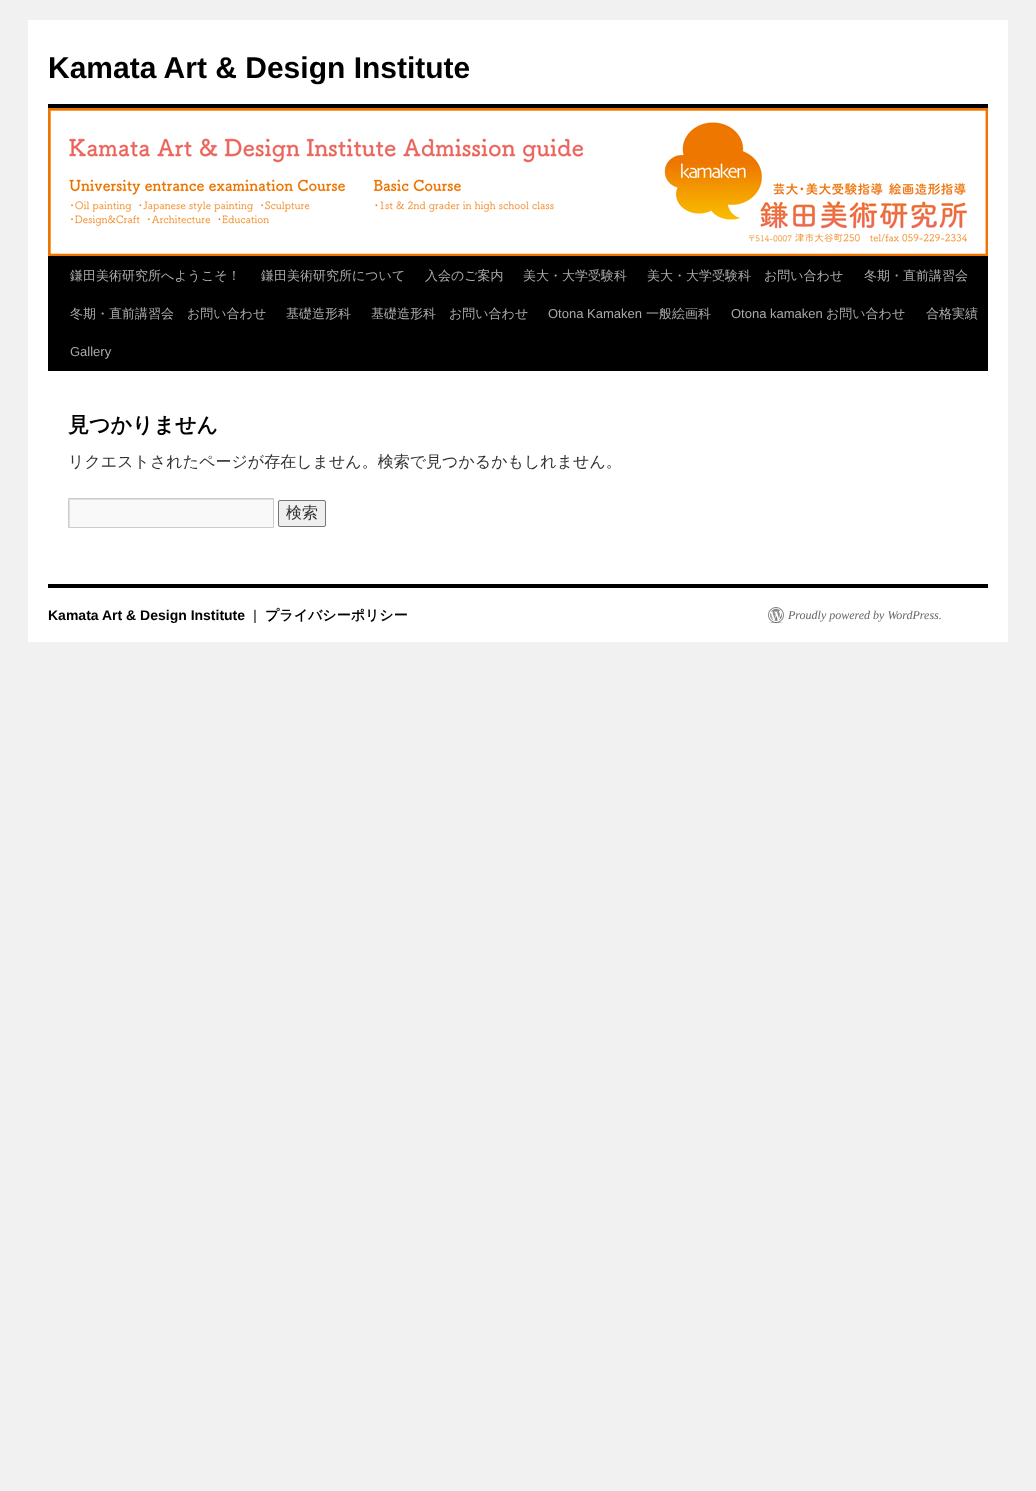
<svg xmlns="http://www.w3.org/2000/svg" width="1036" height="1491">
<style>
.a{font:bold 30px Liberation Sans;fill:#000}
.b{font:500 13px WenQuanYi Zen Hei;fill:#aaa}
.c{font:13px Liberation Sans;fill:#aaa}
.d{font:bold 21px WenQuanYi Zen Hei;fill:#000}
.e{font:500 16px WenQuanYi Zen Hei;fill:#333}
.f{font:bold 14px Liberation Sans;fill:#000}
.g{font:bold 14px Liberation Sans;fill:#666}
.h{font:bold 14px WenQuanYi Zen Hei;fill:#000}
.i{font:italic 12px Liberation Serif;fill:#666}
</style>
<defs>
<clipPath id="clip1"><path d="M69 499h204v28H69z"/></clipPath>
</defs>
<rect width="100%" height="100%" fill="#f1f1f1"/>
<path fill="#fff" d="M28 20h980v622H28z"/>
<path fill="#000" d="M48 104h940v4H48z"/>
<path fill="#000" d="M48 256h940v115H48z"/>
<image href="1.png" x="48" y="108" width="940" height="148"/>
<path fill="#f9f9f9" d="M70 500h203v27H70z"/>
<g clip-path="url(#clip1)">
<path fill="#e0e0e0" fill-rule="evenodd" d="M-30 400h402v226h-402zm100 100h204v28h-204z"/>
</g>
<path fill="none" stroke="#ccc" d="M68.5 498.5h205v29H68.5z"/>
<rect fill="#efefef" stroke="#767676" x="278.5" y="500.5" width="47" height="26" rx="1.5"/>
<path fill="#000" d="M48 584h940v4H48z"/>
<image href="2.png" x="768" y="607" width="16" height="16"/>
<text class="a" x="48" y="78">Kamata Art &amp; Design Institute</text>
<text class="b" x="70" y="280">鎌田美術研究所へようこそ！</text>
<text class="b" x="261" y="280">鎌田美術研究所について</text>
<text class="b" x="425" y="280">入会のご案内</text>
<text class="b" x="523" y="280">美大・大学受験科</text>
<text class="b" x="647" y="280">美大・大学受験科　お問い合わせ</text>
<text class="b" x="864" y="280">冬期・直前講習会</text>
<text class="b" x="70" y="318">冬期・直前講習会　お問い合わせ</text>
<text class="b" x="286" y="318">基礎造形科</text>
<text class="b" x="371" y="318">基礎造形科　お問い合わせ</text>
<text class="c" x="548" y="318">Otona Kamaken</text>
<text class="b" x="646" y="318">一般絵画科</text>
<text class="c" x="731" y="318">Otona kamaken</text>
<text class="b" x="826" y="318">お問い合わせ</text>
<text class="b" x="926" y="318">合格実績</text>
<text class="c" x="70" y="356">Gallery</text>
<text class="d" x="68" y="432">見つかりません</text>
<text class="e" x="68" y="467">リクエストされたページが存在しません。検索で見つかるかもしれません。</text>
<text class="e" x="286" y="518">検索</text>
<text class="f" x="48" y="620">Kamata Art &amp; Design Institute</text>
<text class="g" x="253" y="620">|</text>
<text class="h" x="265" y="620">プライバシーポリシー</text>
<text class="i" x="788" y="619">Proudly powered by WordPress.</text>
</svg>
